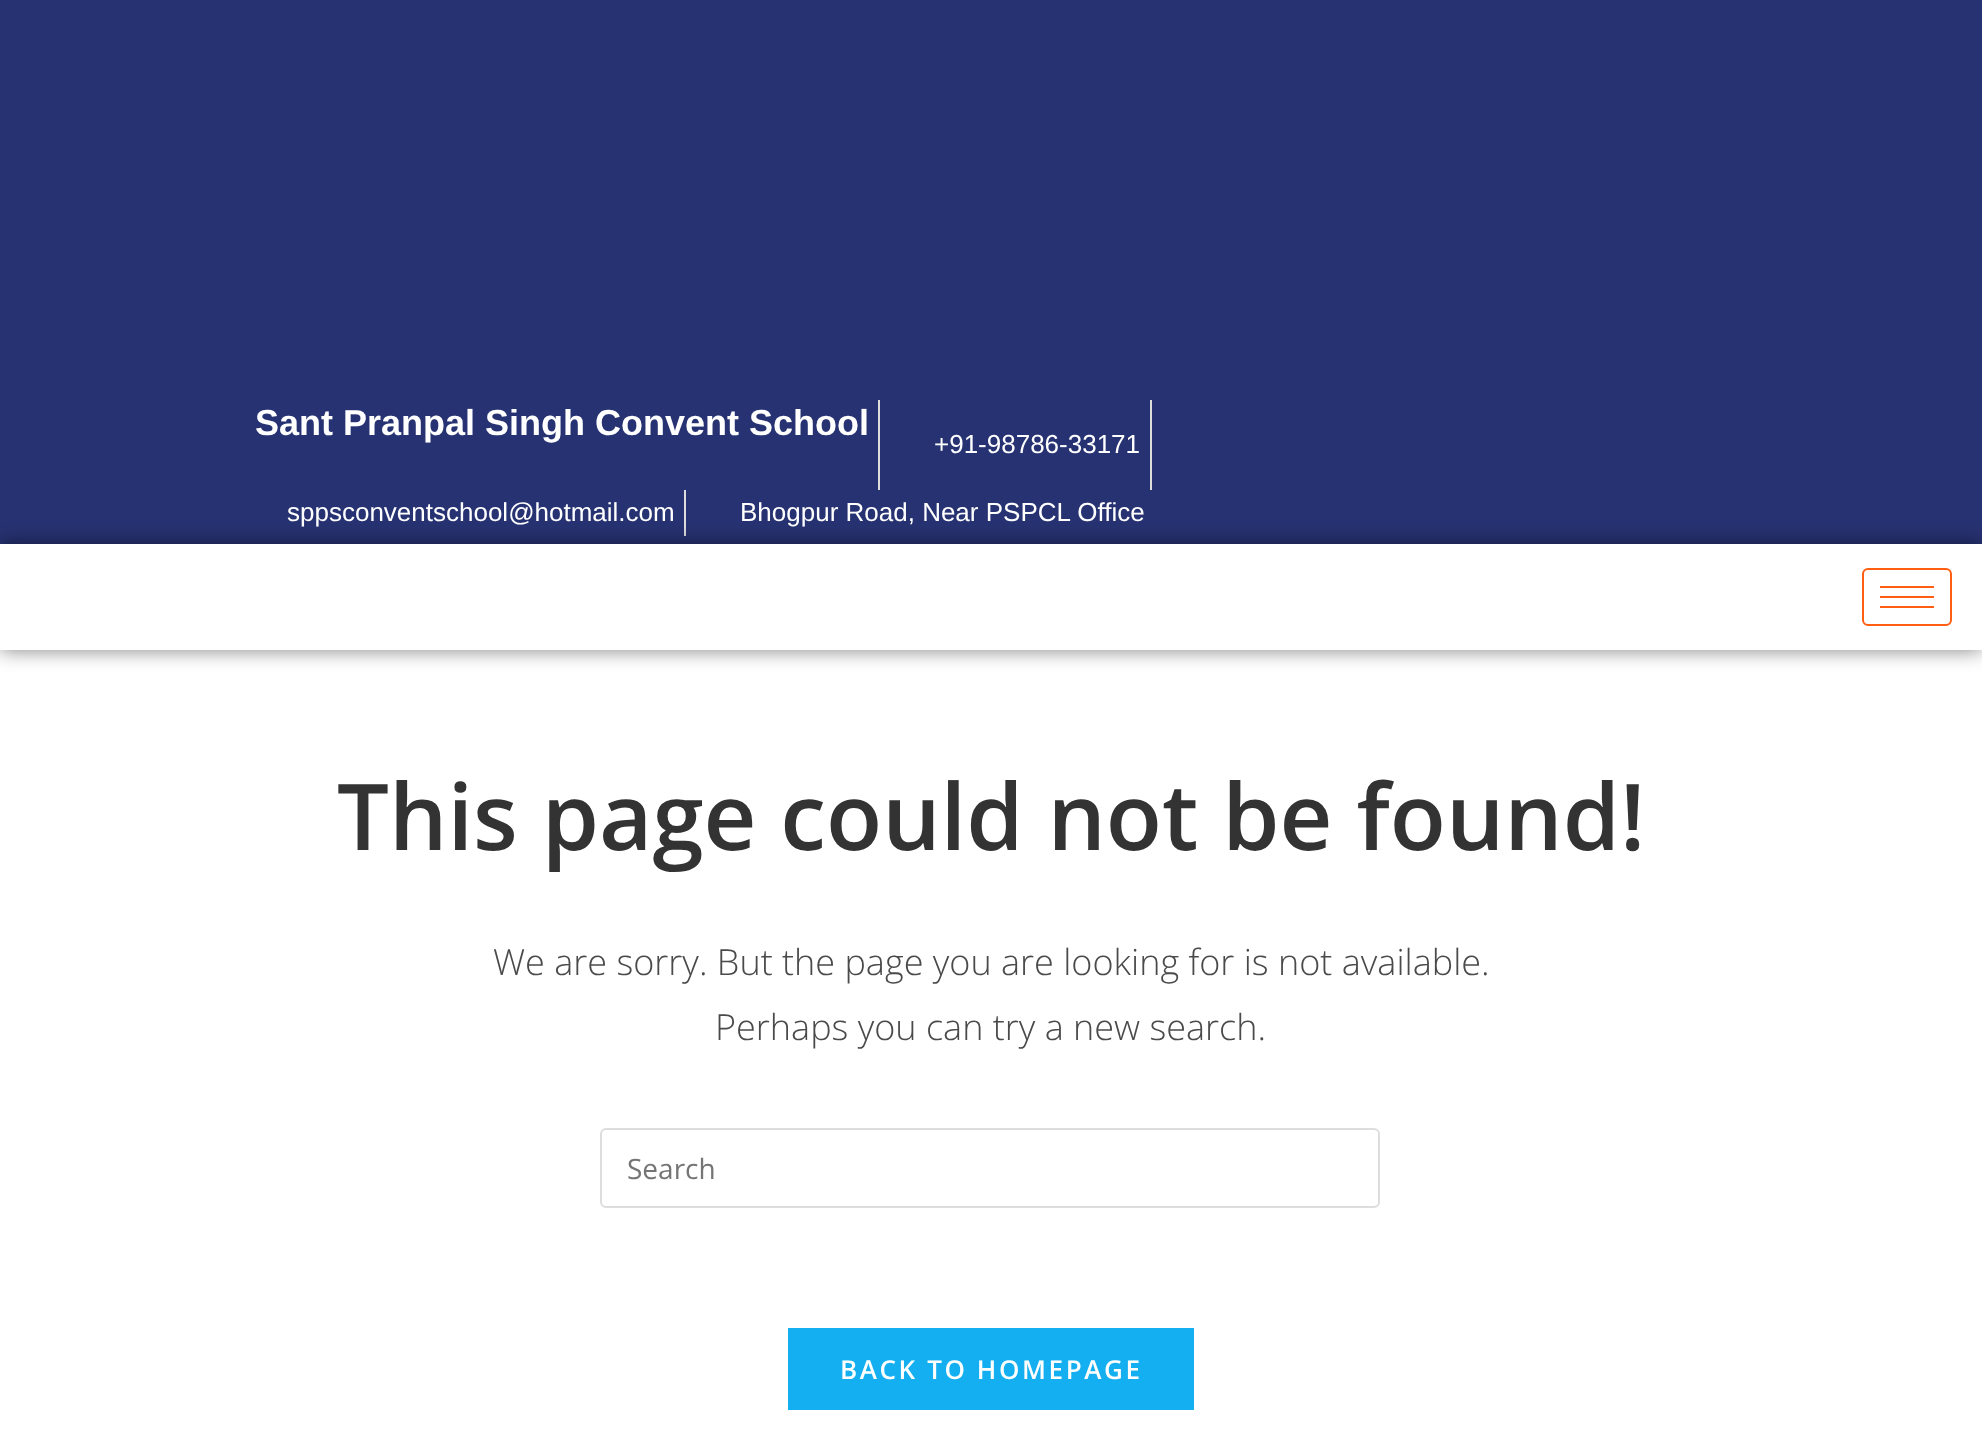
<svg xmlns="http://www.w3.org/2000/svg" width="1982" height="1440">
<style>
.a{font:bold 36px Liberation Sans;fill:#fff}
.b{font:26px Liberation Sans;fill:#fff}
.c{font:600 92px Open Sans;fill:#333}
.d{font:300 36px Open Sans;fill:#4a4a4a}
.e{font:28px Open Sans;fill:#757575}
.f{font:600 26px Open Sans;letter-spacing:2.6px;fill:#fff}
</style>
<defs>
<clipPath id="clip1"><path d="M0 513h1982v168h-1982zm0 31h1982v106h-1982z" clip-rule="evenodd"/></clipPath>
</defs>
<rect width="100%" height="100%" fill="#fff"/>
<path fill="#273272" d="M0 0h1982v544H0z"/>
<path fill="#ddd" d="M878 400h2v90H878z"/>
<path fill="#ddd" d="M1150 400h2v90H1150z"/>
<path fill="#ddd" d="M684 490h2v46H684z"/>
<g clip-path="url(#clip1)">
<path fill="#00000080" filter="blur(10px)" d="M0 544h1982v106H0z"/>
</g>
<rect fill="none" stroke="#ff5e13" stroke-width="2" x="1863" y="569" width="88" height="56" rx="5"/>
<path fill="#ff5e13" d="M1880 586h54v2H1880z"/>
<path fill="#ff5e13" d="M1880 596h54v2H1880z"/>
<path fill="#ff5e13" d="M1880 606h54v2H1880z"/>
<rect fill="none" stroke="#ddd" stroke-width="2" x="601" y="1129" width="778" height="78" rx="5"/>
<path fill="#13aff0" d="M788 1328h406v82H788z"/>
<text class="a" x="255" y="435">Sant Pranpal Singh Convent School</text>
<text class="b" x="934" y="453">+91-98786-33171</text>
<text class="b" x="287" y="521">sppsconventschool@hotmail.com</text>
<text class="b" x="740" y="521">Bhogpur Road, Near PSPCL Office</text>
<text class="c" x="337" y="850">This page could not be found!</text>
<text class="d" x="493" y="975">We are sorry. But the page you are looking for is not available.</text>
<text class="d" x="715" y="1040">Perhaps you can try a new search.</text>
<text class="e" x="627" y="1179">Search</text>
<text class="f" x="840" y="1379">BACK TO HOMEPAGE</text>
</svg>
